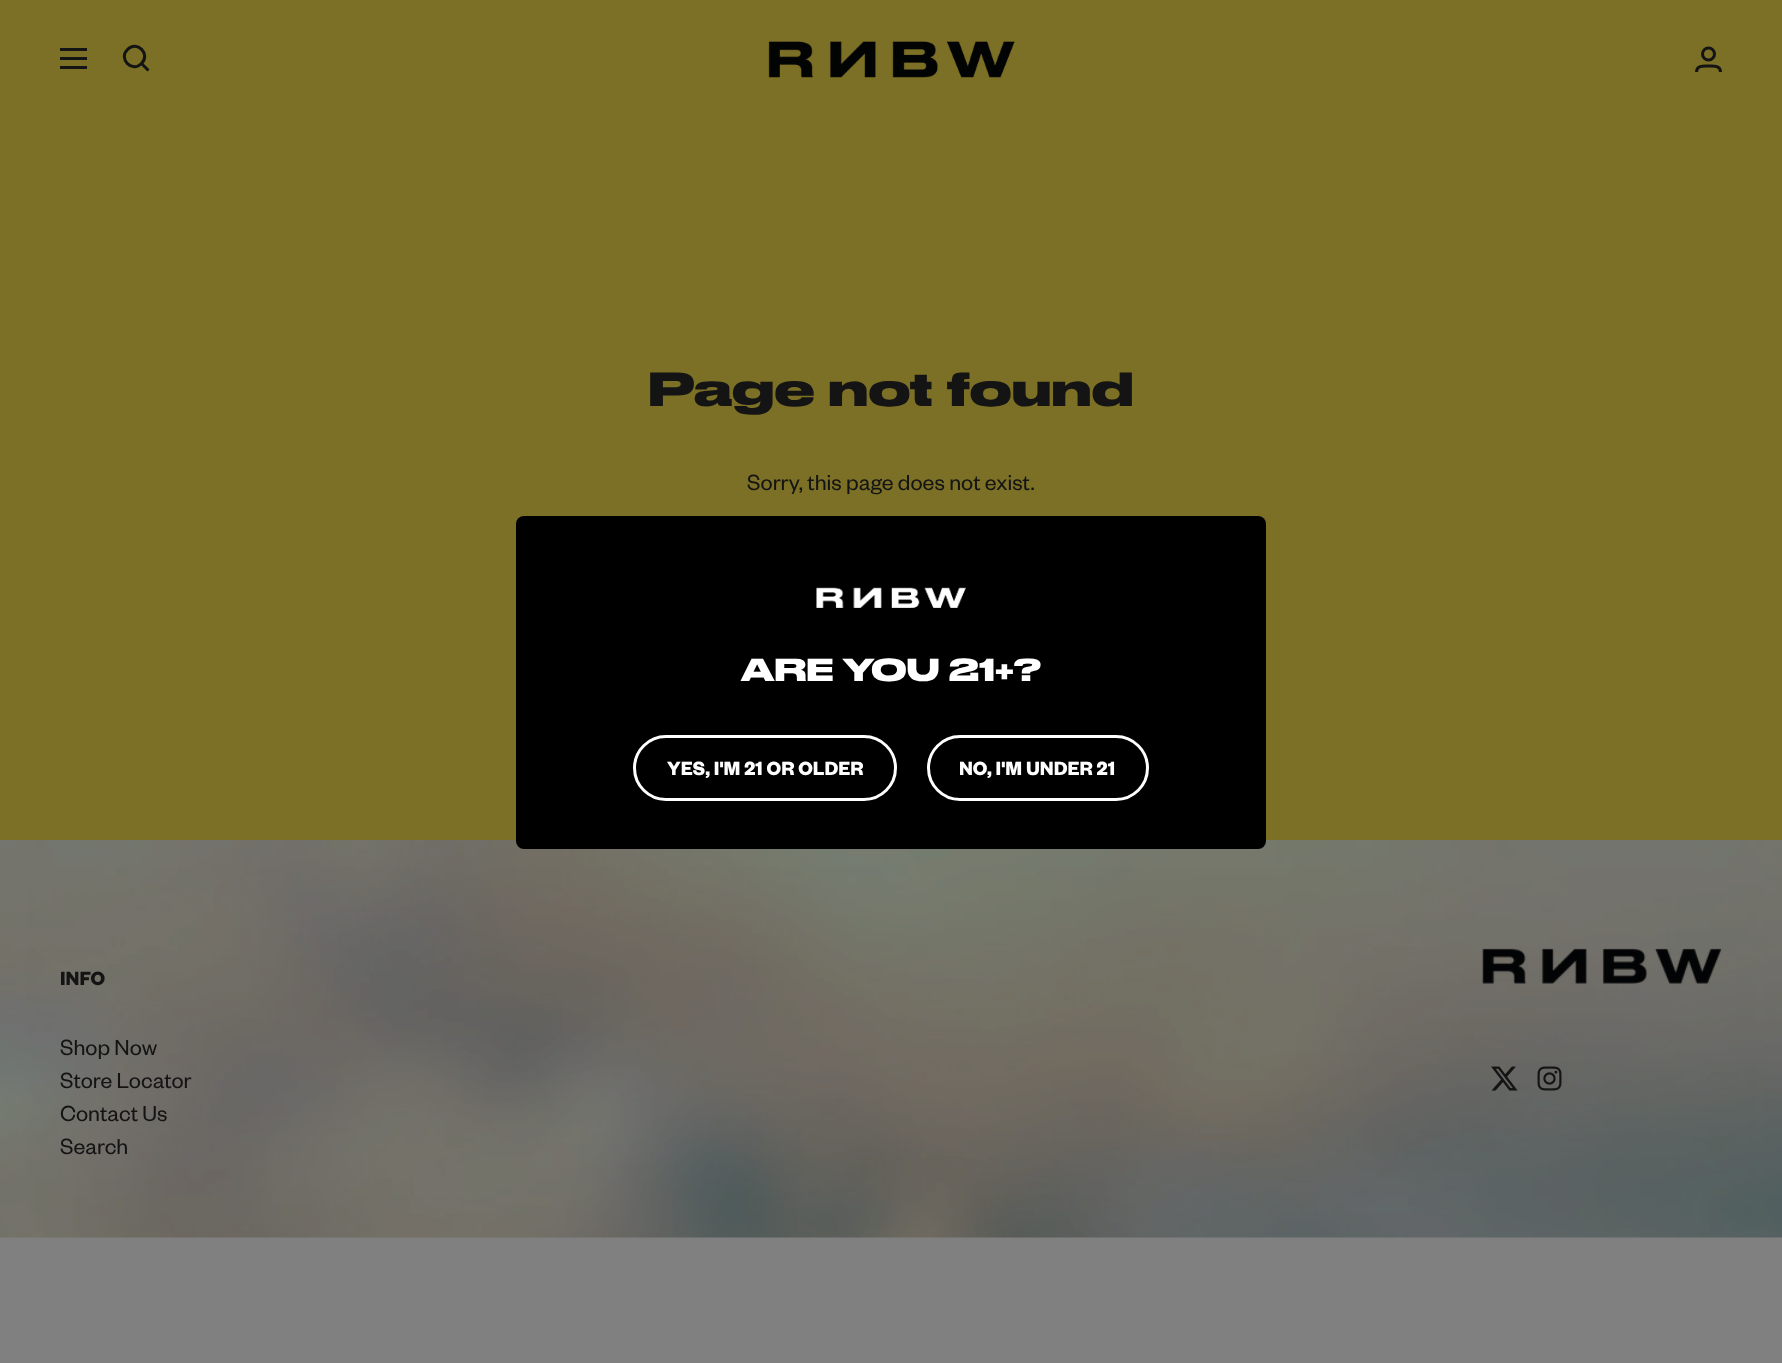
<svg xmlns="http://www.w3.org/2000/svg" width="1782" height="1363">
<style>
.a{font:bold 45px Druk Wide;fill:#141414}
.b{font:24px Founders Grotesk;fill:#141414}
.c{font:bold 30px Druk Wide;fill:#fff}
.d{font:bold 21px Founders Grotesk;fill:#fff}
.e{font:bold 21px Founders Grotesk;fill:#141414}
</style>
<rect width="100%" height="100%" fill="#808080"/>
<path fill="#7c7026" d="M0 0h1782v840H0z"/>
<path fill="none" stroke="#141414" stroke-width="3" d="M60 49.5h27m-27 18h27zm0-9h27z"/>
<path fill="none" stroke="#141414" stroke-width="3" d="M141.5 63.5c9.5-9.5-4.5-23.5-14-14c-9.5 9.5 4.5 23.5 14 14zm0 0l7 7"/>
<image href="1.png" x="768" y="41" width="247" height="37"/>
<circle fill="none" stroke="#141414" stroke-width="3" cx="1708.5" cy="54" r="6"/>
<path fill="none" stroke="#141414" stroke-width="3" d="M1696.5 72c0-7 7.5-6 12-6c4.5 0 12-1 12 6"/>
<image href="3.png" x="0" y="840" width="1782" height="398"/>
<rect fill="#000" x="516" y="516" width="750" height="333" rx="8"/>
<image href="2.png" x="816" y="587" width="150" height="21"/>
<rect fill="none" stroke="#fff" stroke-width="3" x="634.5" y="736.5" width="261" height="63" rx="31.5"/>
<rect fill="none" stroke="#fff" stroke-width="3" x="928.5" y="736.5" width="219" height="63" rx="31.5"/>
<image href="4.png" x="1482" y="948" width="240" height="36"/>
<image href="5.png" x="1491" y="1066" width="27" height="25"/>
<image href="6.png" x="1537" y="1066" width="25" height="25"/>
<text class="a" x="648" y="406">Page not found</text>
<text class="b" x="747" y="490">Sorry, this page does not exist.</text>
<text class="c" x="741" y="681">ARE YOU 21+?</text>
<text class="d" x="667" y="775">YES, I'M 21 OR OLDER</text>
<text class="d" x="959" y="775">NO, I'M UNDER 21</text>
<text class="e" x="60" y="985">INFO</text>
<text class="b" x="60" y="1055">Shop Now</text>
<text class="b" x="60" y="1088">Store Locator</text>
<text class="b" x="60" y="1121">Contact Us</text>
<text class="b" x="60" y="1154">Search</text>
</svg>
